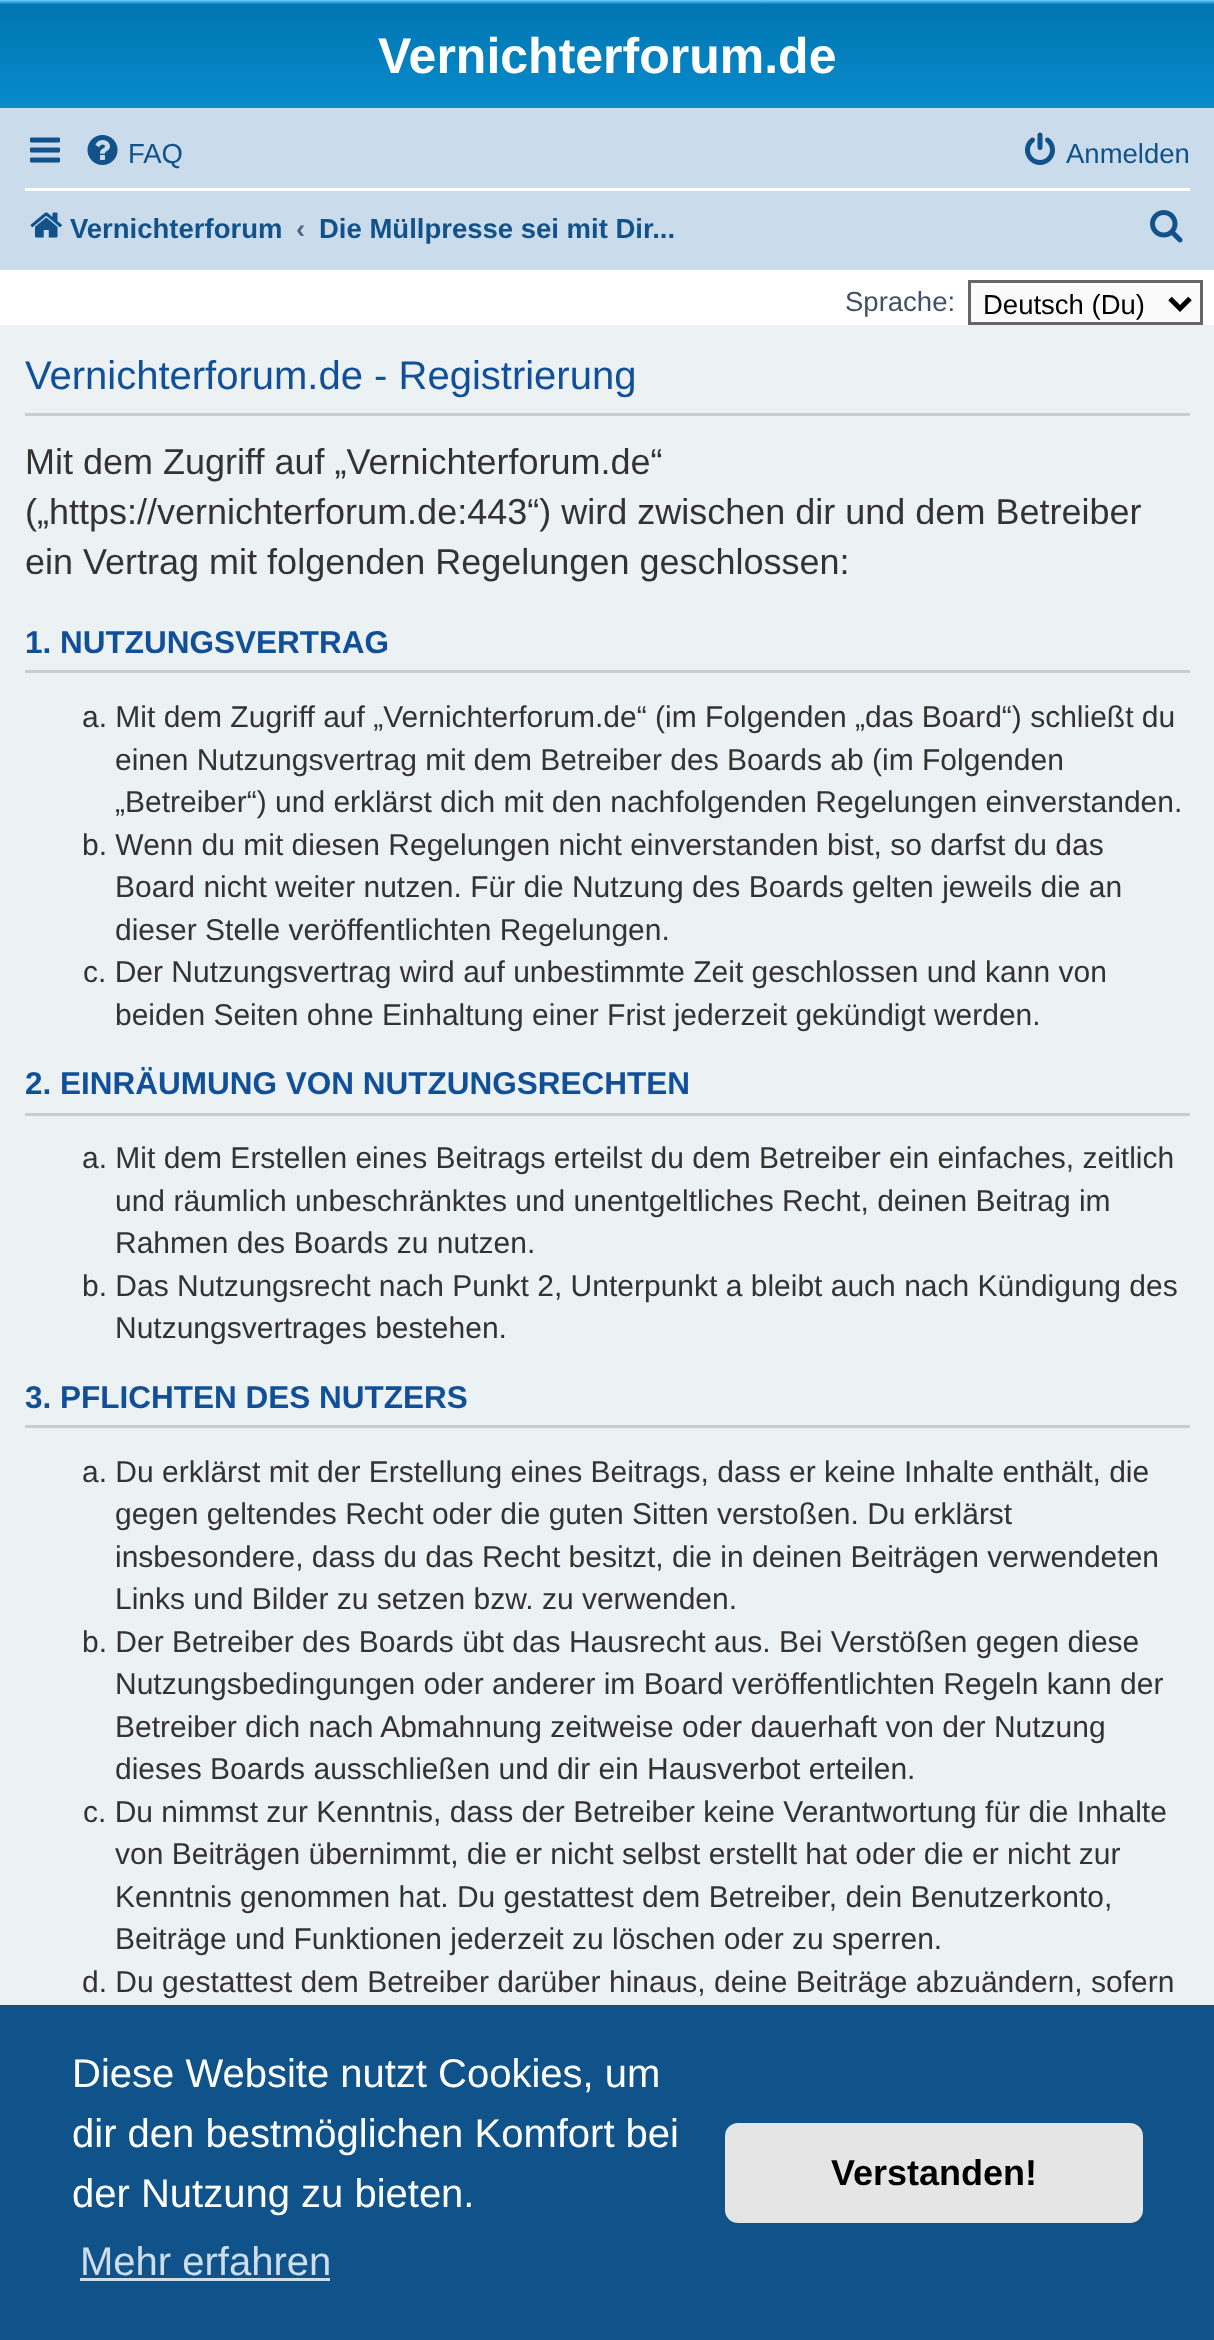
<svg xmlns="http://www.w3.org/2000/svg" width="1214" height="2340">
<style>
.a{font:bold 50px Liberation Sans;fill:#fff}
.b{font:27.5px Liberation Sans;fill:#105289}
.c{font:bold 27.5px Liberation Sans;fill:#105289}
.d{font:bold 27.5px Liberation Sans;fill:#536482}
.e{font:27.5px Liberation Sans;fill:#425067}
.f{font:27.5px Liberation Sans;fill:#000}
.g{font:40px Liberation Sans;fill:#115098}
.h{font:36px Liberation Sans;fill:#333}
.i{font:bold 31.5px Liberation Sans;fill:#115098}
.j{font:30px Liberation Sans;fill:#333}
.k{font:40px Liberation Sans;fill:#fff}
.l{font:40px Liberation Sans;fill:#cfdde8}
.m{font:bold 36px Liberation Sans;fill:#000}
</style>
<defs>
<linearGradient id="g1" gradientUnits="userSpaceOnUse" x1="608" y1="0" x2="608" y2="230"><stop offset="0" stop-color="#6aceff"/><stop offset="0.02" stop-color="#0076b1"/><stop offset="1" stop-color="#12a3eb"/></linearGradient>
</defs>
<rect width="100%" height="100%" fill="#fff"/>
<path fill="url(#g1)" d="M0 0h1214v108H0z"/>
<path fill="#cadceb" d="M0 108h1214v162H0z"/>
<image href="1.png" x="30" y="137" width="30" height="26"/>
<image href="2.png" x="87" y="135" width="31" height="30"/>
<image href="3.png" x="1025" y="132" width="30" height="33"/>
<path fill="#fff" d="M25 188h1165v3H25z"/>
<image href="4.png" x="30" y="212" width="32" height="26"/>
<image href="5.png" x="1150" y="210" width="33" height="33"/>
<path fill="#fafafa" stroke="#666" stroke-width="3" d="M969.5 281.5h232v42H969.5z"/>
<path fill="none" stroke="#000" stroke-width="5" d="M1170 298.5l10 10l10-10"/>
<path fill="#ecf1f3" d="M0 325h1214v1680H0z"/>
<path fill="#ccc" d="M25 413h1165v3H25z"/>
<path fill="#ccc" d="M25 670h1165v3H25z"/>
<path fill="#ccc" d="M25 1113h1165v3H25z"/>
<path fill="#ccc" d="M25 1425h1165v3H25z"/>
<path fill="#0f538a" d="M0 2005h1214v335H0z"/>
<path fill="#cfdde8" d="M80 2278h250v3H80z"/>
<rect fill="#e5e5e5" x="725" y="2123" width="418" height="100" rx="13"/>
<text class="a" x="378" y="73">Vernichterforum.de</text>
<text class="b" x="128" y="163">FAQ</text>
<text class="b" x="1066" y="163">Anmelden</text>
<text class="c" x="70" y="238">Vernichterforum</text>
<text class="d" x="296" y="238">‹</text>
<text class="c" x="319" y="238">Die Müllpresse sei mit Dir...</text>
<text class="e" x="845" y="311">Sprache:</text>
<text class="f" x="983" y="314">Deutsch (Du)</text>
<text class="g" x="25" y="389">Vernichterforum.de - Registrierung</text>
<text class="h" x="25" y="474">Mit dem Zugriff auf „Vernichterforum.de“</text>
<text class="h" x="25" y="524">(„https://vernichterforum.de:443“) wird zwischen dir und dem Betreiber</text>
<text class="h" x="25" y="574">ein Vertrag mit folgenden Regelungen geschlossen:</text>
<text class="i" x="25" y="653">1. NUTZUNGSVERTRAG</text>
<text class="j" x="82" y="727">a. Mit dem Zugriff auf „Vernichterforum.de“ (im Folgenden „das Board“) schließt du</text>
<text class="j" x="115" y="770">einen Nutzungsvertrag mit dem Betreiber des Boards ab (im Folgenden</text>
<text class="j" x="115" y="812">„Betreiber“) und erklärst dich mit den nachfolgenden Regelungen einverstanden.</text>
<text class="j" x="82" y="855">b. Wenn du mit diesen Regelungen nicht einverstanden bist, so darfst du das</text>
<text class="j" x="115" y="897">Board nicht weiter nutzen. Für die Nutzung des Boards gelten jeweils die an</text>
<text class="j" x="115" y="940">dieser Stelle veröffentlichten Regelungen.</text>
<text class="j" x="83" y="982">c. Der Nutzungsvertrag wird auf unbestimmte Zeit geschlossen und kann von</text>
<text class="j" x="115" y="1025">beiden Seiten ohne Einhaltung einer Frist jederzeit gekündigt werden.</text>
<text class="i" x="25" y="1094">2. EINRÄUMUNG VON NUTZUNGSRECHTEN</text>
<text class="j" x="82" y="1168">a. Mit dem Erstellen eines Beitrags erteilst du dem Betreiber ein einfaches, zeitlich</text>
<text class="j" x="115" y="1211">und räumlich unbeschränktes und unentgeltliches Recht, deinen Beitrag im</text>
<text class="j" x="115" y="1253">Rahmen des Boards zu nutzen.</text>
<text class="j" x="82" y="1296">b. Das Nutzungsrecht nach Punkt 2, Unterpunkt a bleibt auch nach Kündigung des</text>
<text class="j" x="115" y="1338">Nutzungsvertrages bestehen.</text>
<text class="i" x="25" y="1408">3. PFLICHTEN DES NUTZERS</text>
<text class="j" x="82" y="1482">a. Du erklärst mit der Erstellung eines Beitrags, dass er keine Inhalte enthält, die</text>
<text class="j" x="115" y="1524">gegen geltendes Recht oder die guten Sitten verstoßen. Du erklärst</text>
<text class="j" x="115" y="1567">insbesondere, dass du das Recht besitzt, die in deinen Beiträgen verwendeten</text>
<text class="j" x="115" y="1609">Links und Bilder zu setzen bzw. zu verwenden.</text>
<text class="j" x="82" y="1652">b. Der Betreiber des Boards übt das Hausrecht aus. Bei Verstößen gegen diese</text>
<text class="j" x="115" y="1694">Nutzungsbedingungen oder anderer im Board veröffentlichten Regeln kann der</text>
<text class="j" x="115" y="1737">Betreiber dich nach Abmahnung zeitweise oder dauerhaft von der Nutzung</text>
<text class="j" x="115" y="1779">dieses Boards ausschließen und dir ein Hausverbot erteilen.</text>
<text class="j" x="83" y="1822">c. Du nimmst zur Kenntnis, dass der Betreiber keine Verantwortung für die Inhalte</text>
<text class="j" x="115" y="1864">von Beiträgen übernimmt, die er nicht selbst erstellt hat oder die er nicht zur</text>
<text class="j" x="115" y="1907">Kenntnis genommen hat. Du gestattest dem Betreiber, dein Benutzerkonto,</text>
<text class="j" x="115" y="1949">Beiträge und Funktionen jederzeit zu löschen oder zu sperren.</text>
<text class="j" x="82" y="1992">d. Du gestattest dem Betreiber darüber hinaus, deine Beiträge abzuändern, sofern</text>
<text class="k" x="72" y="2087">Diese Website nutzt Cookies, um</text>
<text class="k" x="72" y="2147">dir den bestmöglichen Komfort bei</text>
<text class="k" x="72" y="2207">der Nutzung zu bieten.</text>
<text class="l" x="80" y="2275">Mehr erfahren</text>
<text class="m" x="831" y="2185">Verstanden!</text>
</svg>
